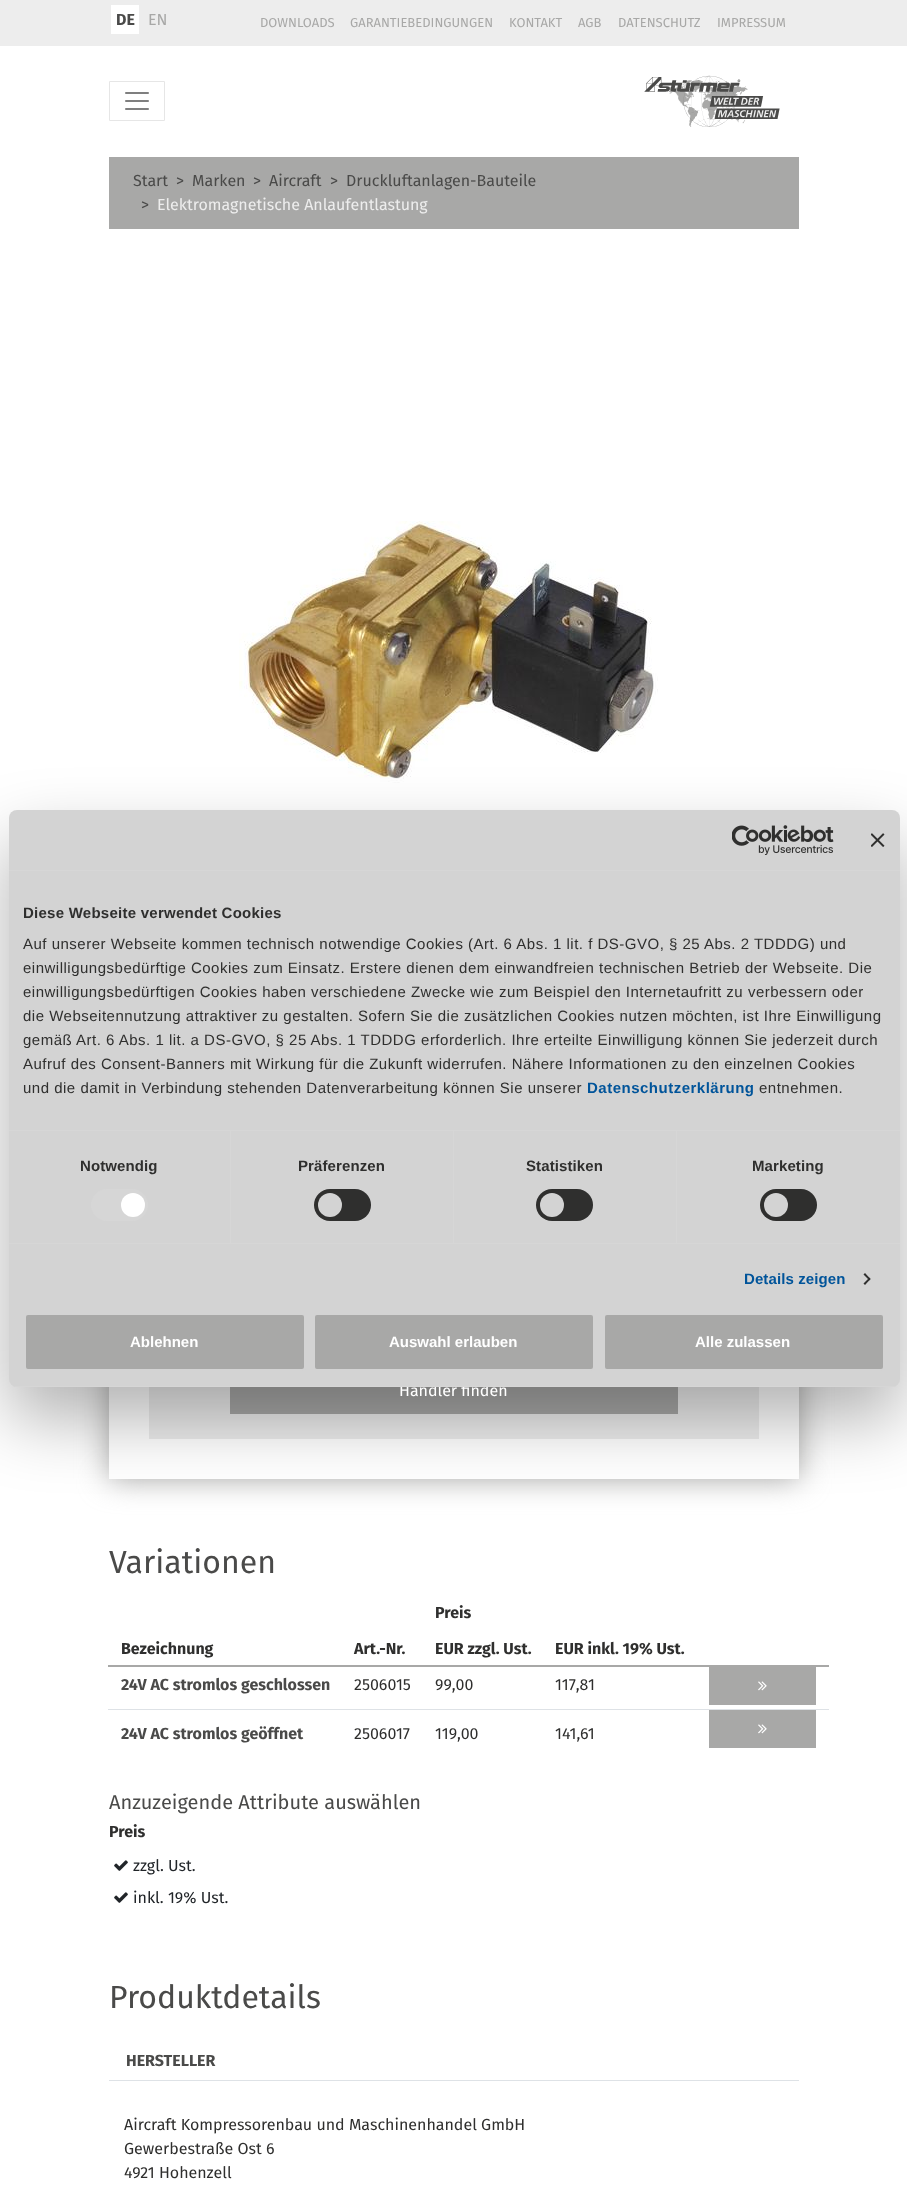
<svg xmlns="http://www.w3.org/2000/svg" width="907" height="2197">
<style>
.a{font:bold 16px Fira Sans;fill:#4a4a49}
.b{font:16px Fira Sans;fill:#a8a8a7}
.c{font:13px Fira Sans;fill:#a8a8a7}
.d{font:16px Fira Sans;fill:#4a4a49}
.e{font:16px Fira Sans;fill:#ededed}
.f{font:16px Fira Sans;fill:#fff}
.g{font:bold 15px Liberation Sans;fill:#fff}
.h{font:15px Liberation Sans;letter-spacing:0.5px;fill:#2f2f2e}
.i{font:bold 15px Liberation Sans;letter-spacing:0.5px;fill:#00549a}
.j{font:bold 15px Liberation Sans;letter-spacing:0.25px;fill:#2f2f2e}
.k{font:bold 15px Liberation Sans;letter-spacing:0.1px;fill:#00549a}
.l{font:bold 15px Liberation Sans;letter-spacing:0.1px;fill:#2f2f2e}
.m{font:32px Fira Sans;fill:#4a4a49}
.n{font:bold 16px Fira Sans;fill:#2f2f2e}
.o{font:16px Fira Sans;fill:#2f2f2e}
.p{font:20px Fira Sans;fill:#4a4a49}
.q{font:16px Fira Sans;fill:#212529}
</style>
<defs>
<clipPath id="clip1"><path d="M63 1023h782v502h-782zm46 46h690v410h-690z" clip-rule="evenodd"/></clipPath>
<clipPath id="clip2"><rect x="9" y="810" width="891" height="577" rx="8"/></clipPath>
</defs>
<rect width="100%" height="100%" fill="#fff"/>
<path fill="#ededed" d="M0 0h907v46H0z"/>
<path fill="#fff" d="M111 5h28v29H111z"/>
<path fill="none" stroke="#e6e6e6" d="M109.5 81.5h55v39H109.5z"/>
<image href="1.png" x="125" y="92" width="24" height="18"/>
<image href="2.png" x="644" y="75" width="136" height="52"/>
<path fill="#a8a8a7" d="M109 157h690v72H109z"/>
<image href="5.png" x="239" y="521" width="419" height="262"/>
<g clip-path="url(#clip1)">
<path fill="#a8a8a7" filter="blur(15px)" d="M109 1069h690v410H109z"/>
</g>
<path fill="#ededed" d="M149 1387h610v52H149z"/>
<path fill="#a8a8a7" d="M230 1387h448v27H230z"/>
<rect fill="#0000004d" filter="blur(34px)" x="9" y="842" width="891" height="577" rx="8"/>
<path fill="#a8a8a7" d="M108 1665h721v2H108z"/>
<path fill="#a8a8a7" d="M709 1667h107v38H709z"/>
<image href="6.png" x="758" y="1681" width="9" height="10"/>
<path fill="#dee2e6" d="M108 1709h721v1H108z"/>
<path fill="#a8a8a7" d="M709 1710h107v38H709z"/>
<image href="6.png" x="758" y="1724" width="9" height="10"/>
<image href="7.png" x="114" y="1860" width="14" height="11"/>
<image href="7.png" x="114" y="1892" width="14" height="11"/>
<path fill="#dee2e6" d="M109 2080h690v1H109z"/>
<text class="a" x="116" y="25">DE</text>
<text class="b" x="148" y="25">EN</text>
<text class="c" x="260" y="27">DOWNLOADS</text>
<text class="c" x="350" y="27">GARANTIEBEDINGUNGEN</text>
<text class="c" x="509" y="27">KONTAKT</text>
<text class="c" x="578" y="27">AGB</text>
<text class="c" x="618" y="27">DATENSCHUTZ</text>
<text class="c" x="717" y="27">IMPRESSUM</text>
<text class="d" x="133" y="186">Start</text>
<text class="d" x="176" y="186">&gt;</text>
<text class="d" x="192" y="186">Marken</text>
<text class="d" x="253" y="186">&gt;</text>
<text class="d" x="269" y="186">Aircraft</text>
<text class="d" x="330" y="186">&gt;</text>
<text class="d" x="346" y="186">Druckluftanlagen-Bauteile</text>
<text class="d" x="141" y="210">&gt;</text>
<text class="e" x="157" y="210">Elektromagnetische Anlaufentlastung</text>
<text class="f" x="399" y="1396">Händler finden</text>
<rect fill="#d3d3d3" x="9" y="810" width="891" height="577" rx="8"/>
<rect fill="#a8a8a7" stroke="#d3d3d3" stroke-width="2" x="604" y="1314" width="280" height="56" rx="3"/>
<text class="g" x="695" y="1347">Alle zulassen</text>
<rect fill="#a8a8a7" stroke="#d3d3d3" stroke-width="2" x="314" y="1314" width="280" height="56" rx="3"/>
<text class="g" x="389" y="1347">Auswahl erlauben</text>
<rect fill="#a8a8a7" stroke="#d3d3d3" stroke-width="2" x="25" y="1314" width="280" height="56" rx="3"/>
<text class="g" x="130" y="1347">Ablehnen</text>
<g clip-path="url(#clip2)">
<path fill="#d6d6d6" d="M9 1386h891v1H9z"/>
</g>
<path fill="#2f2f2e" d="M865 1273l5.5 6l-1 1.5l-6-6z"/>
<path fill="#2f2f2e" d="M869.5 1277.5l1 1.5l-5.5 6l-1.5-1.5z"/>
<rect fill="#2f2f2e" x="760" y="1189" width="57" height="32" rx="16"/>
<circle fill="#d3d3d3" cx="776" cy="1205" r="12"/>
<rect fill="#2f2f2e" x="536" y="1189" width="57" height="32" rx="16"/>
<circle fill="#d3d3d3" cx="552" cy="1205" r="12"/>
<rect fill="#2f2f2e" x="314" y="1189" width="57" height="32" rx="16"/>
<circle fill="#d3d3d3" cx="330" cy="1205" r="12"/>
<rect fill="#d6d6d6" x="91" y="1189" width="57" height="32" rx="16"/>
<circle fill="#fff" cx="133" cy="1205" r="12"/>
<text class="h" x="759" y="1093">entnehmen.</text>
<text class="i" x="587" y="1093">Datenschutzerklärung</text>
<text class="h" x="23" y="1093">und die damit in Verbindung stehenden Datenverarbeitung können Sie unserer</text>
<text class="h" x="23" y="1069">Aufruf des Consent-Banners mit Wirkung für die Zukunft widerrufen. Nähere Informationen zu den einzelnen Cookies</text>
<text class="h" x="23" y="1045">gemäß Art. 6 Abs. 1 lit. a DS-GVO, § 25 Abs. 1 TDDDG erforderlich. Ihre erteilte Einwilligung können Sie jederzeit durch</text>
<text class="h" x="23" y="1021">die Webseitennutzung attraktiver zu gestalten. Sofern Sie die zusätzlichen Cookies nutzen möchten, ist Ihre Einwilligung</text>
<text class="h" x="23" y="997">einwilligungsbedürftigen Cookies haben verschiedene Zwecke wie zum Beispiel den Internetaufritt zu verbessern oder</text>
<text class="h" x="23" y="973">einwilligungsbedürftige Cookies zum Einsatz. Erstere dienen dem einwandfreien technischen Betrieb der Webseite. Die</text>
<text class="h" x="23" y="949">Auf unserer Webseite kommen technisch notwendige Cookies (Art. 6 Abs. 1 lit. f DS-GVO, § 25 Abs. 2 TDDDG) und</text>
<text class="j" x="23" y="918">Diese Webseite verwendet Cookies</text>
<path fill="#d6d6d6" d="M9 1130h891v1H9z"/>
<text class="k" x="744" y="1284">Details zeigen</text>
<text class="l" x="752" y="1171">Marketing</text>
<text class="l" x="526" y="1171">Statistiken</text>
<path fill="#d6d6d6" d="M676 1131h1v112H676z"/>
<text class="l" x="298" y="1171">Präferenzen</text>
<path fill="#d6d6d6" d="M453 1131h1v112H453z"/>
<text class="l" x="80" y="1171">Notwendig</text>
<path fill="#d6d6d6" d="M230 1131h1v112H230z"/>
<path fill="#d6d6d6" d="M9 1243h891v1H9z"/>
<image href="4.png" x="871" y="833" width="14" height="14"/>
<image href="3.png" x="732" y="825" width="102" height="30"/>
<path fill="#d6d6d6" d="M9 870h891v1H9z"/>
<text class="m" x="109" y="1573">Variationen</text>
<text class="n" x="435" y="1618">Preis</text>
<text class="n" x="121" y="1654">Bezeichnung</text>
<text class="n" x="354" y="1654">Art.-Nr.</text>
<text class="n" x="435" y="1654">EUR zzgl. Ust.</text>
<text class="n" x="555" y="1654">EUR inkl. 19% Ust.</text>
<text class="a" x="121" y="1690">24V AC stromlos geschlossen</text>
<text class="o" x="354" y="1690">2506015</text>
<text class="o" x="435" y="1690">99,00</text>
<text class="o" x="555" y="1690">117,81</text>
<text class="a" x="121" y="1739">24V AC stromlos geöffnet</text>
<text class="o" x="354" y="1739">2506017</text>
<text class="o" x="435" y="1739">119,00</text>
<text class="o" x="555" y="1739">141,61</text>
<text class="p" x="109" y="1809">Anzuzeigende Attribute auswählen</text>
<text class="n" x="109" y="1837">Preis</text>
<text class="q" x="133" y="1871">zzgl. Ust.</text>
<text class="q" x="133" y="1903">inkl. 19% Ust.</text>
<text class="m" x="109" y="2008">Produktdetails</text>
<text class="a" x="126" y="2066">HERSTELLER</text>
<text class="o" x="124" y="2130">Aircraft Kompressorenbau und Maschinenhandel GmbH</text>
<text class="o" x="124" y="2154">Gewerbestraße Ost 6</text>
<text class="o" x="124" y="2178">4921 Hohenzell</text>
</svg>
